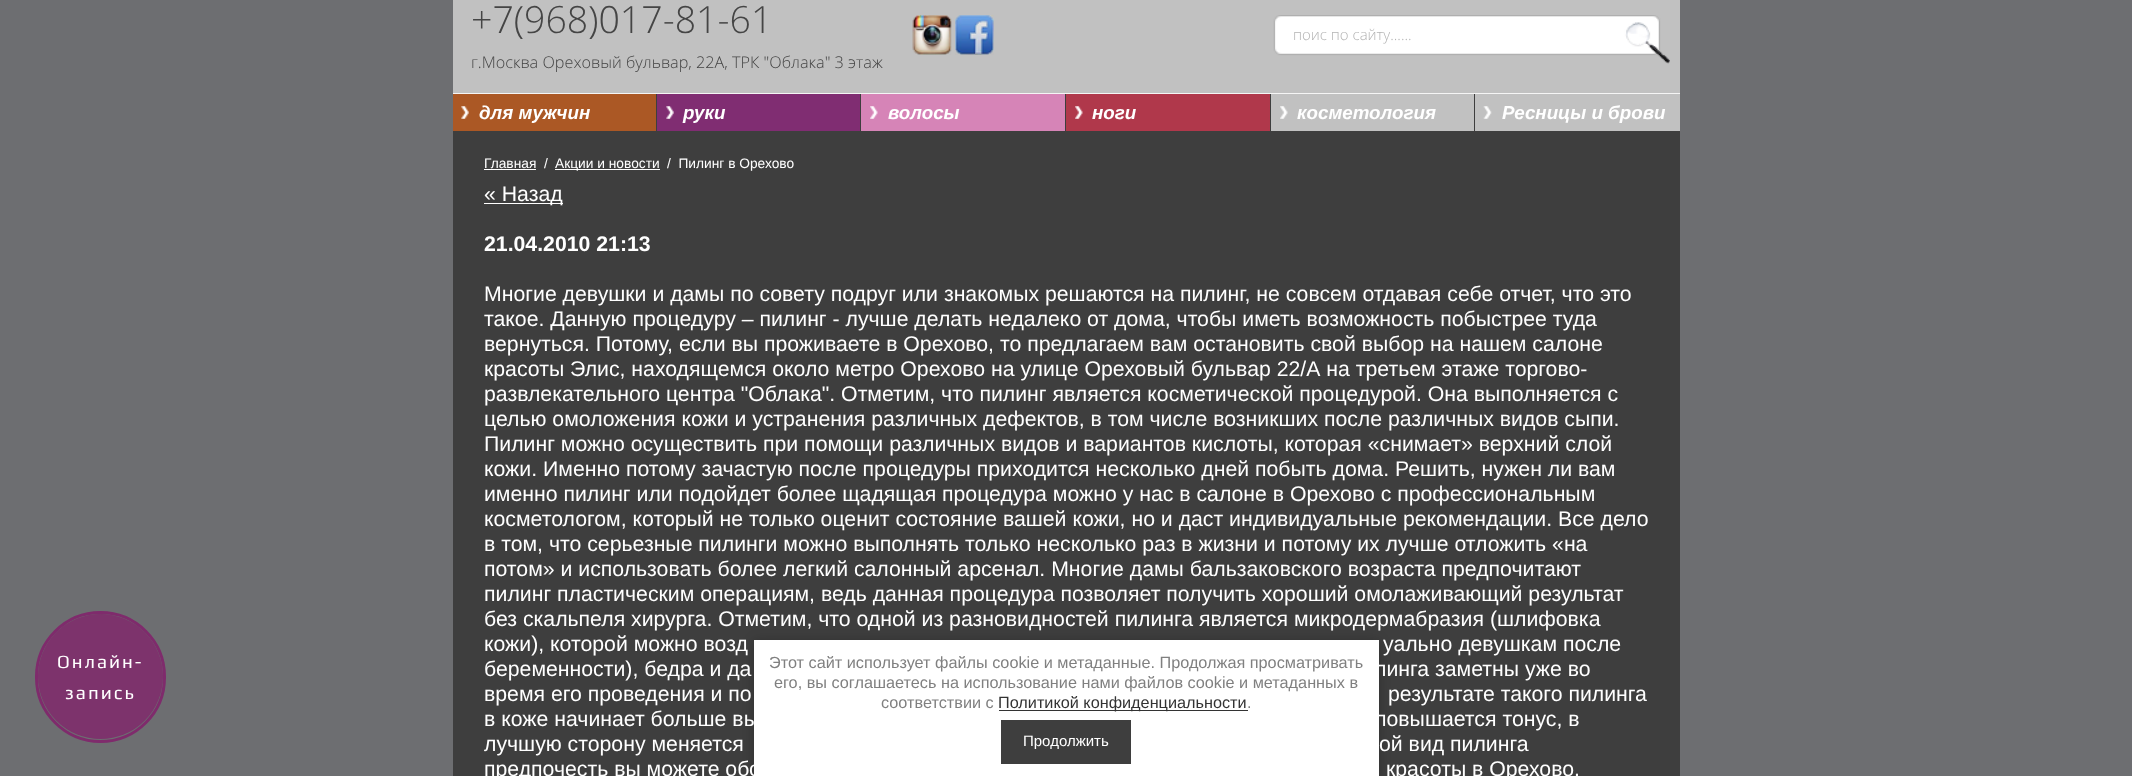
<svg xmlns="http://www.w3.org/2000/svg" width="2132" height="776">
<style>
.a{font:18.75px Play;letter-spacing:2px;fill:#fff}
.b{font:300 37.5px Open Sans;fill:#454545}
.c{font:300 16.25px Open Sans;fill:#454545}
.d{font:300 15px Open Sans;fill:#b3b3b3}
.e{font:italic bold 18.75px Liberation Sans;fill:#fff}
.f{font:13.75px Liberation Sans;fill:#fff}
.g{font:21.25px Liberation Sans;fill:#fff}
.h{font:bold 21.25px Liberation Sans;fill:#fff}
.i{font:16.25px Liberation Sans;fill:#808080}
.j{font:16.25px Liberation Sans;fill:#333}
.k{font:15px Liberation Sans;fill:#fff}
</style>
<rect width="100%" height="100%" fill="#6d6e71"/>
<circle fill="#7d336c" cx="100.5" cy="676.5" r="62.5"/>
<rect fill="none" stroke="#81246be6" stroke-width="3" x="36.5" y="612.5" width="128" height="129" rx="64"/>
<path fill="#c1c1c1" d="M453 0h1227v131H453z"/>
<image href="1.png" x="912" y="15" width="40" height="40"/>
<image href="2.png" x="955" y="15" width="39" height="40"/>
<image href="3.png" x="1273" y="15" width="397" height="49"/>
<path fill="#f5f5f5" d="M453 93h1227v1H453z"/>
<path fill="#ab5825" d="M453 94h203v37H453z"/>
<image href="4.png" x="461" y="106" width="8" height="13"/>
<path fill="#802d72" d="M657 94h203v37H657z"/>
<path fill="#3e3e3e" d="M656 94h1v37H656z"/>
<image href="5.png" x="666" y="106" width="8" height="13"/>
<path fill="#d684b7" d="M861 94h204v37H861z"/>
<path fill="#3e3e3e" d="M860 94h1v37H860z"/>
<image href="6.png" x="870" y="106" width="8" height="13"/>
<path fill="#b0384b" d="M1066 94h204v37H1066z"/>
<path fill="#3e3e3e" d="M1065 94h1v37H1065z"/>
<image href="7.png" x="1075" y="106" width="8" height="13"/>
<path fill="#3e3e3e" d="M1270 94h1v37H1270z"/>
<image href="8.png" x="1280" y="106" width="8" height="13"/>
<path fill="#3e3e3e" d="M1474 94h1v37H1474z"/>
<image href="9.png" x="1483" y="106" width="9" height="13"/>
<path fill="#3e3e3e" d="M453 131h1227v645H453z"/>
<path fill="#fff" d="M484 169h52v1H484z"/>
<path fill="#fff" d="M555 169h105v1H555z"/>
<path fill="#fff" d="M484 203h79v1H484z"/>
<path fill="#0000003b" filter="blur(6px)" d="M754 641h625v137H754z"/>
<path fill="#fff" d="M754 640h625v136H754z"/>
<path fill="#333" d="M999 710h249v1H999z"/>
<path fill="#3e3e3e" d="M1001 720h130v44H1001z"/>
<text class="a" x="57" y="668">Онлайн-</text>
<text class="a" x="65" y="699">запись</text>
<text class="b" x="471" y="33">+7(968)017-81-61</text>
<text class="c" x="471" y="68">г.Москва Ореховый бульвар, 22А, ТРК "Облака" 3 этаж</text>
<text class="d" x="1293" y="40">поис по сайту......</text>
<text class="e" x="479" y="119">для мужчин</text>
<text class="e" x="683" y="119">руки</text>
<text class="e" x="888" y="119">волосы</text>
<text class="e" x="1092" y="119">ноги</text>
<text class="e" x="1297" y="119">косметология</text>
<text class="e" x="1502" y="119">Ресницы и брови</text>
<text class="f" x="484" y="168">Главная</text>
<text class="f" x="544" y="168">/</text>
<text class="f" x="555" y="168">Акции и новости</text>
<text class="f" xml:space="preserve" x="667" y="168">/  Пилинг в Орехово</text>
<text class="g" x="484" y="201">« Назад</text>
<text class="h" x="484" y="251">21.04.2010 21:13</text>
<text class="g" x="484" y="301">Многие девушки и дамы по совету подруг или знакомых решаются на пилинг, не совсем отдавая себе отчет, что это</text>
<text class="g" x="484" y="326">такое. Данную процедуру – пилинг - лучше делать недалеко от дома, чтобы иметь возможность побыстрее туда</text>
<text class="g" x="484" y="351">вернуться. Потому, если вы проживаете в Орехово, то предлагаем вам остановить свой выбор на нашем салоне</text>
<text class="g" x="484" y="376">красоты Элис, находящемся около метро Орехово на улице Ореховый бульвар 22/А на третьем этаже торгово-</text>
<text class="g" x="484" y="401">развлекательного центра "Облака". Отметим, что пилинг является косметической процедурой. Она выполняется с</text>
<text class="g" x="484" y="426">целью омоложения кожи и устранения различных дефектов, в том числе возникших после различных видов сыпи.</text>
<text class="g" x="484" y="451">Пилинг можно осуществить при помощи различных видов и вариантов кислоты, которая «снимает» верхний слой</text>
<text class="g" x="484" y="476">кожи. Именно потому зачастую после процедуры приходится несколько дней побыть дома. Решить, нужен ли вам</text>
<text class="g" x="484" y="501">именно пилинг или подойдет более щадящая процедура можно у нас в салоне в Орехово с профессиональным</text>
<text class="g" x="484" y="526">косметологом, который не только оценит состояние вашей кожи, но и даст индивидуальные рекомендации. Все дело</text>
<text class="g" x="484" y="551">в том, что серьезные пилинги можно выполнять только несколько раз в жизни и потому их лучше отложить «на</text>
<text class="g" x="484" y="576">потом» и использовать более легкий салонный арсенал. Многие дамы бальзаковского возраста предпочитают</text>
<text class="g" x="484" y="601">пилинг пластическим операциям, ведь данная процедура позволяет получить хороший омолаживающий результат</text>
<text class="g" x="484" y="626">без скальпеля хирурга. Отметим, что одной из разновидностей пилинга является микродермабразия (шлифовка</text>
<text class="g" x="484" y="651">кожи), которой можно возд</text>
<text class="g" x="1383" y="651">уально девушкам после</text>
<text class="g" x="484" y="676">беременности), бедра и да</text>
<text class="g" x="1374" y="676">линга заметны уже во</text>
<text class="g" x="484" y="701">время его проведения и по</text>
<text class="g" x="1388" y="701">результате такого пилинга</text>
<text class="g" x="484" y="726">в коже начинает больше вы</text>
<text class="g" x="1375" y="726">повышается тонус, в</text>
<text class="g" x="484" y="751">лучшую сторону меняется</text>
<text class="g" x="1379" y="751">ой вид пилинга</text>
<text class="g" x="484" y="776">предпочесть вы можете обс</text>
<text class="g" x="1386" y="776">красоты в Орехово.</text>
<text class="i" x="769" y="668">Этот сайт использует файлы cookie и метаданные. Продолжая просматривать</text>
<text class="i" x="774" y="688">его, вы соглашаетесь на использование нами файлов cookie и метаданных в</text>
<text class="i" x="881" y="708">соответствии с</text>
<text class="j" x="998" y="708">Политикой конфиденциальности</text>
<text class="i" x="1247" y="708">.</text>
<text class="k" x="1023" y="746">Продолжить</text>
</svg>
